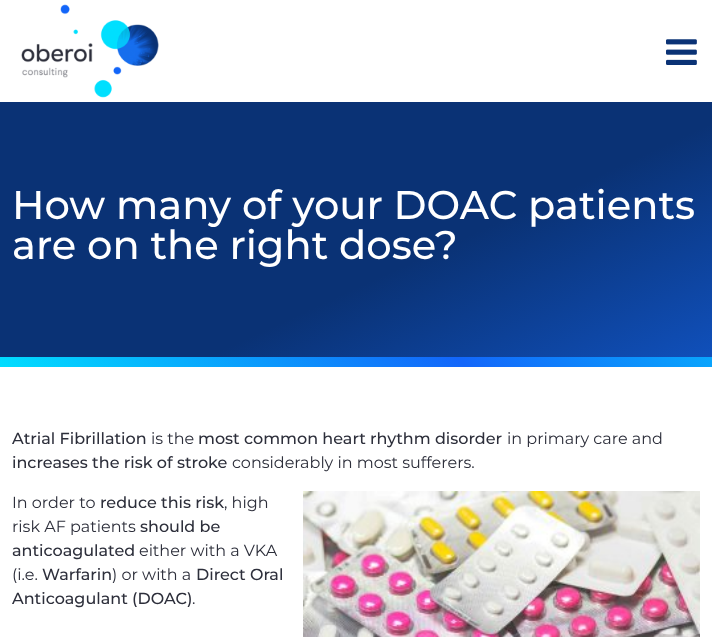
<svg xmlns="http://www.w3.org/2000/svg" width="712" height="637">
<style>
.a{font:500 40px Montserrat;fill:#fff}
.b{font:500 16px Montserrat;fill:#2d2f3b}
.c{font:16px Montserrat;fill:#2d2f3b}
</style>
<defs>
<linearGradient id="g1" gradientUnits="userSpaceOnUse" x1="244" y1="-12" x2="468" y2="471"><stop offset="0.6" stop-color="#0a3275"/><stop offset="1" stop-color="#1050bb"/></linearGradient>
<linearGradient id="g2" gradientUnits="userSpaceOnUse" x1="351" y1="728" x2="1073" y2="6"><stop offset="0" stop-color="#00e0ff"/><stop offset="0.33" stop-color="#1366fa"/><stop offset="0.67" stop-color="#00e0ff"/><stop offset="1" stop-color="#0a3275"/></linearGradient>
</defs>
<rect width="100%" height="100%" fill="#fff"/>
<image href="1.png" x="21" y="4" width="138" height="94"/>
<image href="2.png" x="666" y="39" width="31" height="26"/>
<path fill="url(#g1)" d="M0 102h712v255H0z"/>
<path fill="url(#g2)" d="M0 357h712v10H0z"/>
<image href="3.png" x="303" y="491" width="397" height="146"/>
<text class="a" x="12" y="219">How many of your DOAC patients</text>
<text class="a" x="12" y="259">are on the right dose?</text>
<text class="b" x="12" y="444">Atrial Fibrillation</text>
<text class="c" x="151" y="444">is the</text>
<text class="b" x="198" y="444">most common heart rhythm disorder</text>
<text class="c" x="507" y="444">in primary care and</text>
<text class="b" x="12" y="468">increases the risk of stroke</text>
<text class="c" x="232" y="468">considerably in most sufferers.</text>
<text class="c" x="12" y="508">In order to</text>
<text class="b" x="100" y="508">reduce this risk</text>
<text class="c" x="224" y="508">, high</text>
<text class="c" x="12" y="532">risk AF patients</text>
<text class="b" x="140" y="532">should be</text>
<text class="b" x="12" y="556">anticoagulated</text>
<text class="c" x="139" y="556">either with a VKA</text>
<text class="c" x="12" y="580">(i.e.</text>
<text class="b" x="42" y="580">Warfarin</text>
<text class="c" x="112" y="580">) or with a</text>
<text class="b" x="196" y="580">Direct Oral</text>
<text class="b" x="12" y="604">Anticoagulant (DOAC)</text>
<text class="c" x="192" y="604">.</text>
</svg>
